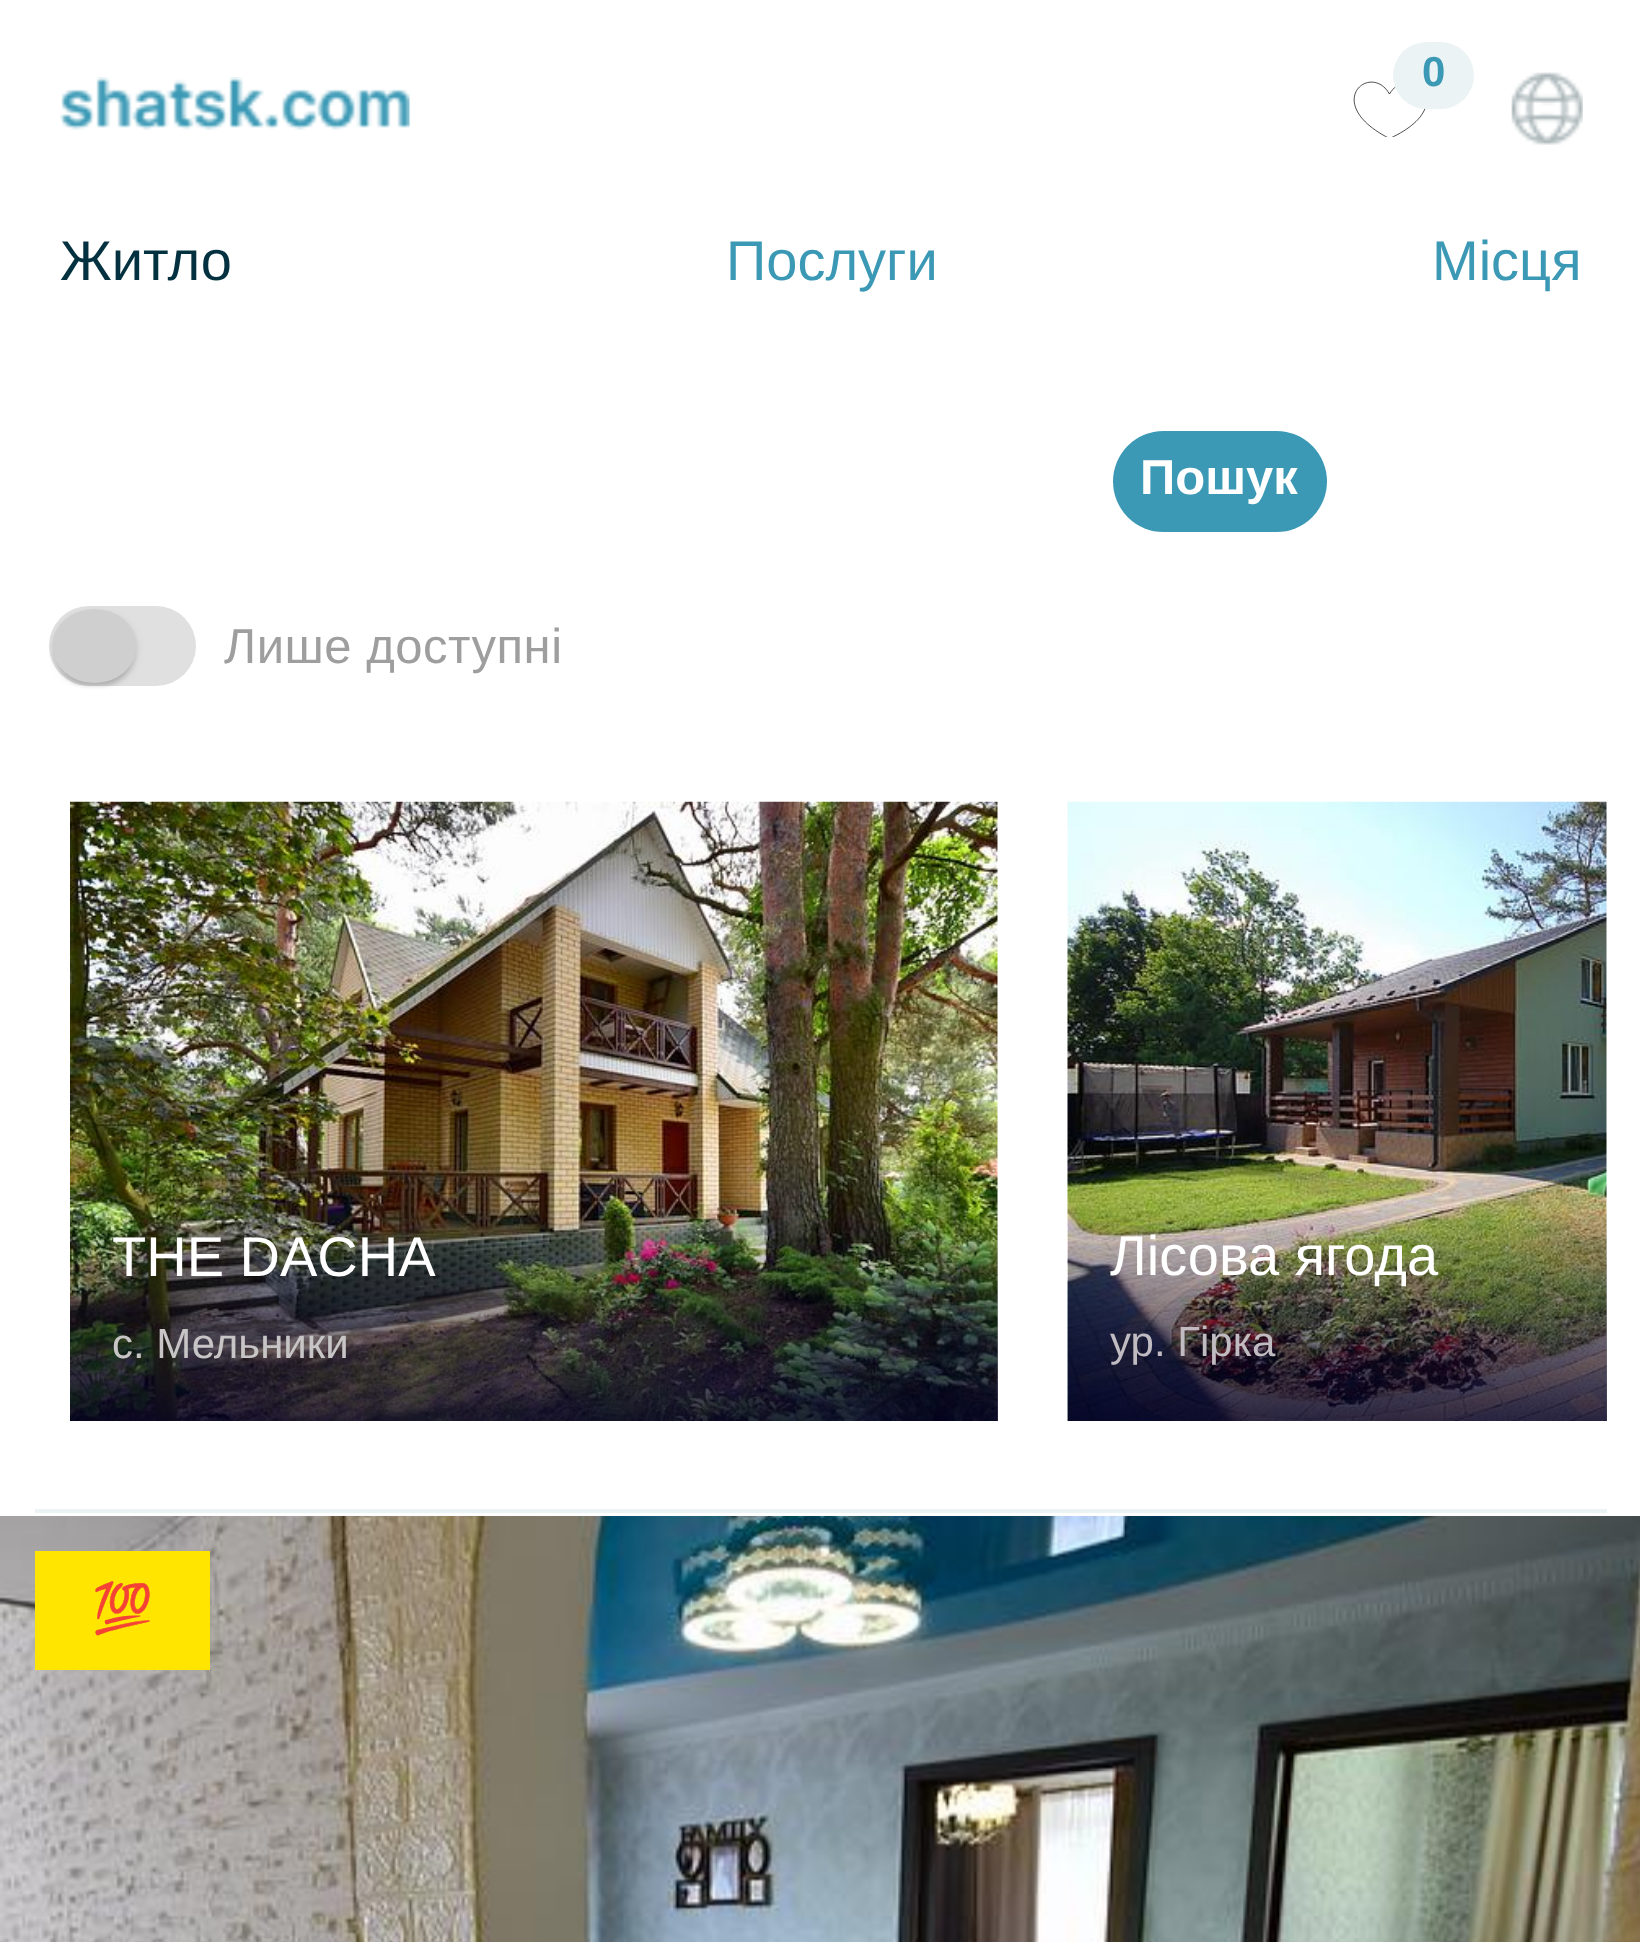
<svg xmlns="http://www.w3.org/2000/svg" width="1640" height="1942">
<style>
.a{font:bold 42px Liberation Sans;fill:#3b99b5}
.b{font:56px Liberation Sans;fill:#04313f}
.c{font:56px Liberation Sans;fill:#3b99b5}
.d{font:bold 49px Liberation Sans;fill:#fff}
.e{font:49px Liberation Sans;letter-spacing:0.5px;fill:#9e9e9e}
.f{font:56px Liberation Sans;fill:#fff}
.g{font:42px Liberation Sans;fill:#c7c5c6}
.h{font:42px Liberation Sans;fill:#c0bcc1}
.i{font:49px Noto Color Emoji;fill:#2c2828}
</style>
<defs>
<clipPath id="clip1"><path d="M1351 81h77v56H1351z"/></clipPath>
<clipPath id="clip2"><path d="M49 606h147v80H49z"/></clipPath>
<linearGradient id="g1" gradientUnits="userSpaceOnUse" x1="534" y1="1421" x2="534" y2="802"><stop offset="0" stop-color="#020024" stop-opacity="0.8"/><stop offset="0.35" stop-color="#020024" stop-opacity="0"/><stop offset="1" stop-color="#fff" stop-opacity="0"/></linearGradient>
<linearGradient id="g2" gradientUnits="userSpaceOnUse" x1="1531" y1="1421" x2="1531" y2="802"><stop offset="0" stop-color="#020024" stop-opacity="0.8"/><stop offset="0.35" stop-color="#020024" stop-opacity="0"/><stop offset="1" stop-color="#fff" stop-opacity="0"/></linearGradient>
</defs>
<rect width="100%" height="100%" fill="#fff"/>
<g clip-path="url(#clip1)">
<path fill="none" stroke="#000" stroke-width="0.7" d="M1389.5 94c20-33.5 72.5 11.5 0 44.5c-69-35-19-77.5 0-44.5z"/>
</g>
<rect fill="#ecf3f5" x="1393" y="42" width="81" height="67" rx="33.5"/>
<image href="1.png" x="1511" y="72" width="72" height="73"/>
<image href="2.png" x="60" y="77" width="350" height="53"/>
<rect fill="#3b99b5" x="1113" y="431" width="214" height="101" rx="50.5"/>
<rect fill="#e0e0e0" x="49" y="606" width="147" height="80" rx="40"/>
<g clip-path="url(#clip2)">
<rect fill="#0000000f" filter="blur(5px)" x="53" y="613" width="84" height="73" rx="36.5"/>
</g>
<rect fill="#00000012" filter="blur(2px)" x="53" y="613" width="84" height="73" rx="36.5"/>
<rect fill="#0000001a" filter="blur(2px)" x="56" y="620" width="77" height="66" rx="33"/>
<ellipse fill="#cfcfcf" cx="94.5" cy="646" rx="42" ry="37"/>
<path fill="#ecf3f5" d="M35 1509h1572v4H35z"/>
<image href="3.png" x="70" y="801" width="928" height="620"/>
<path fill="url(#g1)" d="M70 1210h928v211H70z"/>
<image href="4.png" x="1067" y="801" width="540" height="620"/>
<path fill="url(#g2)" d="M1068 1210h539v211H1068z"/>
<image href="5.png" x="0" y="1516" width="1640" height="426"/>
<path fill="#ffe500" d="M35 1551h175v119H35z"/>
<text class="a" x="1422" y="86">0</text>
<text class="b" x="60" y="280">Житло</text>
<text class="c" x="726" y="280">Послуги</text>
<text class="c" x="1432" y="280">Місця</text>
<text class="d" x="1140" y="494">Пошук</text>
<text class="e" x="224" y="663">Лише доступні</text>
<text class="f" x="112" y="1276">THE DACHA</text>
<text class="g" x="112" y="1358">с. Мельники</text>
<text class="f" x="1110" y="1275">Лісова ягода</text>
<text class="h" x="1110" y="1356">ур. Гірка</text>
<text class="i" x="92" y="1625">💯</text>
</svg>
